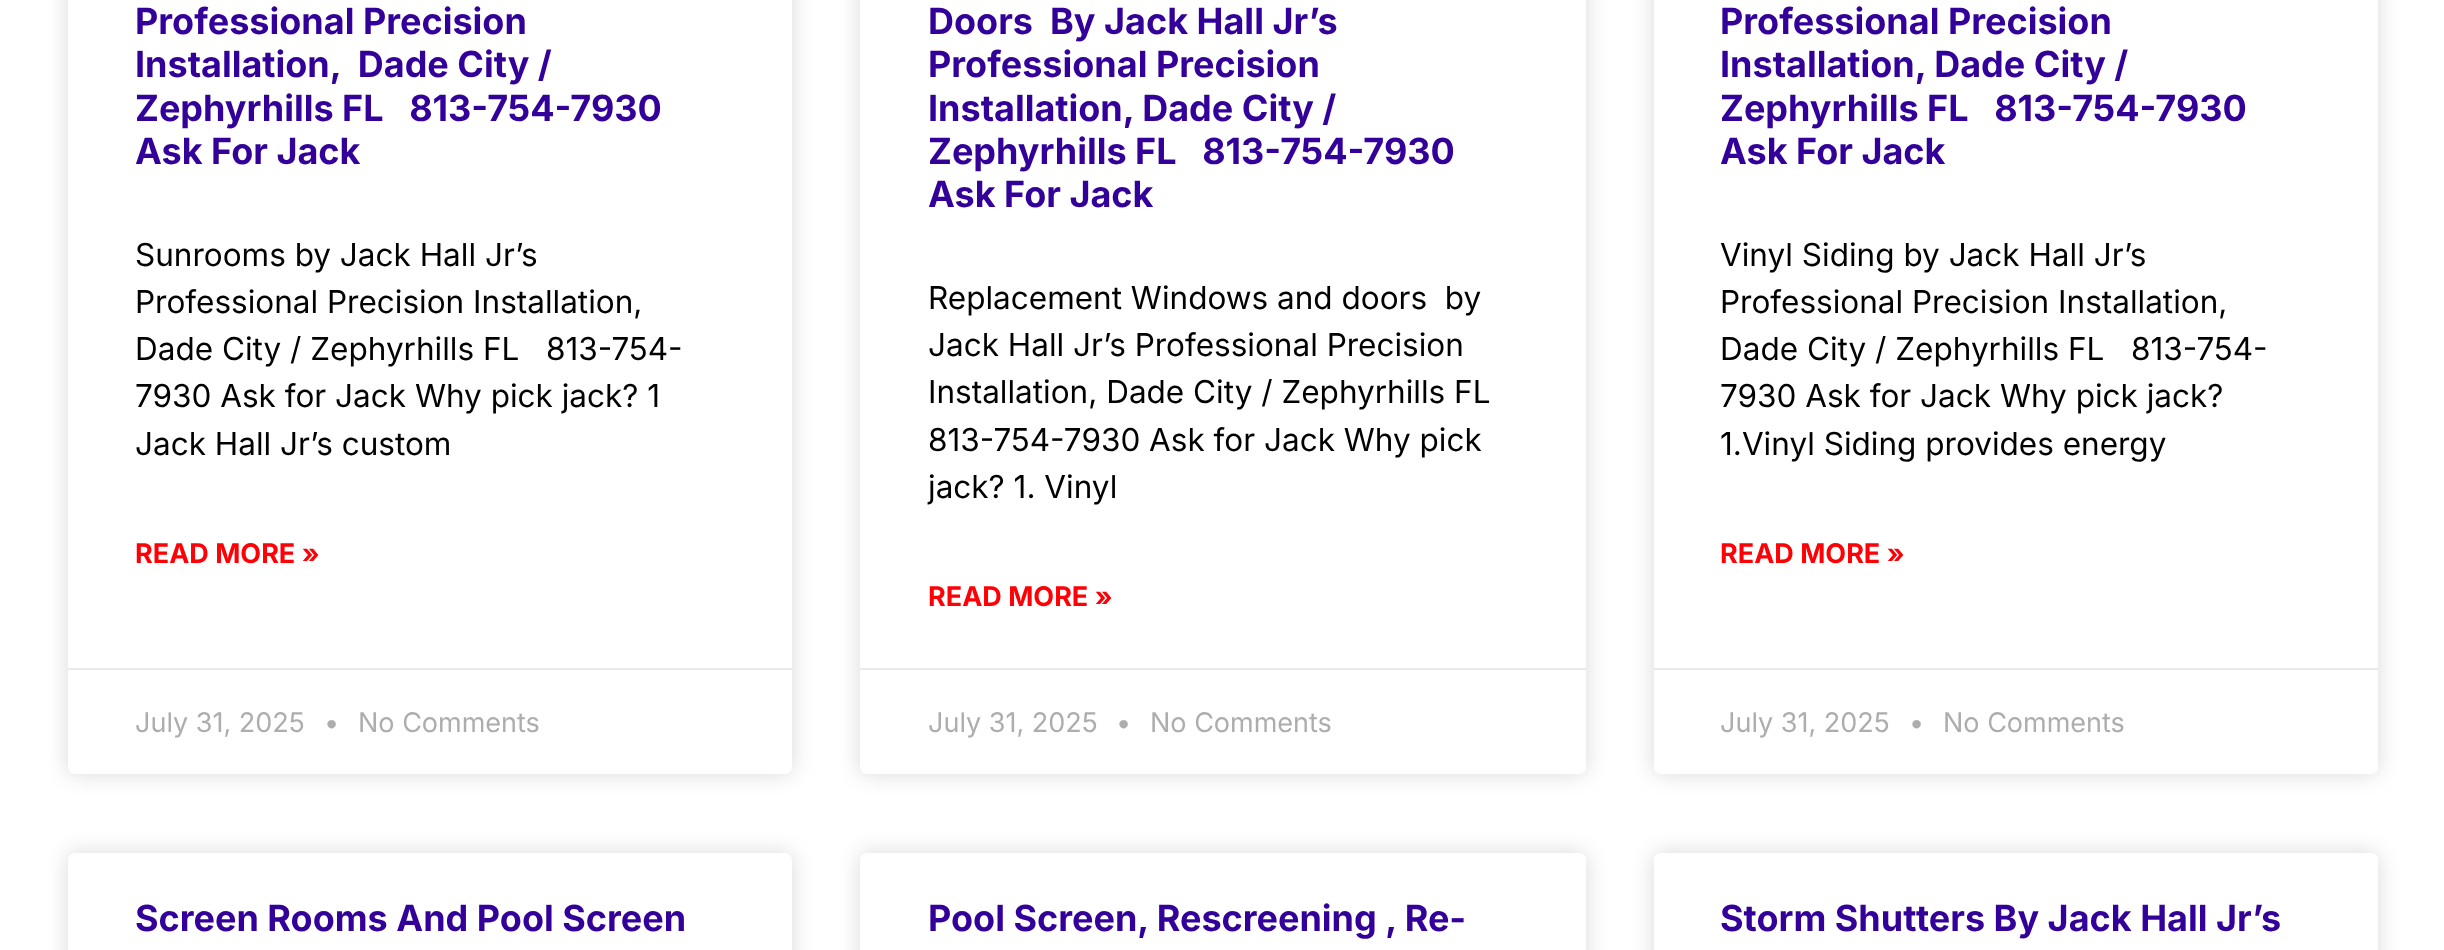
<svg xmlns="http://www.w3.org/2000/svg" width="2444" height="950">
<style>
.a{font:bold 36px Inter;fill:#309}
.b{font:31.5px Inter;fill:#000}
.c{font:bold 27px Inter;fill:#fe0005}
.d{font:27px Inter;fill:#adadad}
</style>
<defs>
<clipPath id="clip1"><path d="M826 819h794v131h-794zm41 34h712c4 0 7 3 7 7v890c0 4-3 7-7 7h-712c-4 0-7-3-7-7v-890c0-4 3-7 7-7z" clip-rule="evenodd"/></clipPath>
<clipPath id="clip2"><path d="M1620 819h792v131h-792zm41 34h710c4 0 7 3 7 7v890c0 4-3 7-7 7h-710c-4 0-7-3-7-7v-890c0-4 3-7 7-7z" clip-rule="evenodd"/></clipPath>
</defs>
<rect width="100%" height="100%" fill="#fff"/>
<rect fill="#00000026" filter="blur(11px)" x="68" y="-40" width="724" height="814" rx="7"/>
<rect fill="#fff" x="68" y="-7" width="724" height="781" rx="7"/>
<path fill="#eaeaea" d="M68 668h724v2H68z"/>
<rect fill="#00000026" filter="blur(11px)" x="860" y="-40" width="726" height="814" rx="7"/>
<rect fill="#fff" x="860" y="-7" width="726" height="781" rx="7"/>
<path fill="#eaeaea" d="M860 668h726v2H860z"/>
<rect fill="#00000026" filter="blur(11px)" x="1654" y="-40" width="724" height="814" rx="7"/>
<rect fill="#fff" x="1654" y="-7" width="724" height="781" rx="7"/>
<path fill="#eaeaea" d="M1654 668h724v2H1654z"/>
<rect fill="#00000026" filter="blur(11px)" x="68" y="853" width="724" height="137" rx="7"/>
<rect fill="#fff" x="68" y="853" width="724" height="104" rx="7"/>
<g clip-path="url(#clip1)">
<rect fill="#00000026" filter="blur(11px)" x="860" y="853" width="726" height="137" rx="7"/>
</g>
<g clip-path="url(#clip2)">
<rect fill="#00000026" filter="blur(11px)" x="1654" y="853" width="724" height="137" rx="7"/>
</g>
<text class="a" x="135" y="34">Professional Precision</text>
<text class="a" xml:space="preserve" x="135" y="77">Installation,  Dade City /</text>
<text class="a" xml:space="preserve" x="135" y="121">Zephyrhills FL   813-754-7930</text>
<text class="a" x="135" y="164">Ask For Jack</text>
<text class="b" x="135" y="266">Sunrooms by Jack Hall Jr’s</text>
<text class="b" x="135" y="313">Professional Precision Installation,</text>
<text class="b" xml:space="preserve" x="135" y="360">Dade City / Zephyrhills FL   813-754-</text>
<text class="b" x="135" y="407">7930 Ask for Jack Why pick jack? 1</text>
<text class="b" x="135" y="455">Jack Hall Jr’s custom</text>
<text class="c" x="135" y="563">READ MORE »</text>
<text class="d" x="135" y="732">July 31, 2025</text>
<text class="d" x="324" y="732">•</text>
<text class="d" x="358" y="732">No Comments</text>
<text class="a" xml:space="preserve" x="928" y="34">Doors  By Jack Hall Jr’s</text>
<text class="a" x="928" y="77">Professional Precision</text>
<text class="a" x="928" y="121">Installation, Dade City /</text>
<text class="a" xml:space="preserve" x="928" y="164">Zephyrhills FL   813-754-7930</text>
<text class="a" x="928" y="207">Ask For Jack</text>
<text class="b" xml:space="preserve" x="928" y="309">Replacement Windows and doors  by</text>
<text class="b" x="928" y="356">Jack Hall Jr’s Professional Precision</text>
<text class="b" x="928" y="403">Installation, Dade City / Zephyrhills FL</text>
<text class="b" x="928" y="451">813-754-7930 Ask for Jack Why pick</text>
<text class="b" x="928" y="498">jack? 1. Vinyl</text>
<text class="c" x="928" y="606">READ MORE »</text>
<text class="d" x="928" y="732">July 31, 2025</text>
<text class="d" x="1116" y="732">•</text>
<text class="d" x="1150" y="732">No Comments</text>
<text class="a" x="1720" y="34">Professional Precision</text>
<text class="a" x="1720" y="77">Installation, Dade City /</text>
<text class="a" xml:space="preserve" x="1720" y="121">Zephyrhills FL   813-754-7930</text>
<text class="a" x="1720" y="164">Ask For Jack</text>
<text class="b" x="1720" y="266">Vinyl Siding by Jack Hall Jr’s</text>
<text class="b" x="1720" y="313">Professional Precision Installation,</text>
<text class="b" xml:space="preserve" x="1720" y="360">Dade City / Zephyrhills FL   813-754-</text>
<text class="b" x="1720" y="407">7930 Ask for Jack Why pick jack?</text>
<text class="b" x="1720" y="455">1.Vinyl Siding provides energy</text>
<text class="c" x="1720" y="563">READ MORE »</text>
<text class="d" x="1720" y="732">July 31, 2025</text>
<text class="d" x="1909" y="732">•</text>
<text class="d" x="1943" y="732">No Comments</text>
<text class="a" x="135" y="931">Screen Rooms And Pool Screen</text>
<text class="a" x="928" y="931">Pool Screen, Rescreening , Re-</text>
<text class="a" x="1720" y="931">Storm Shutters By Jack Hall Jr’s</text>
</svg>
